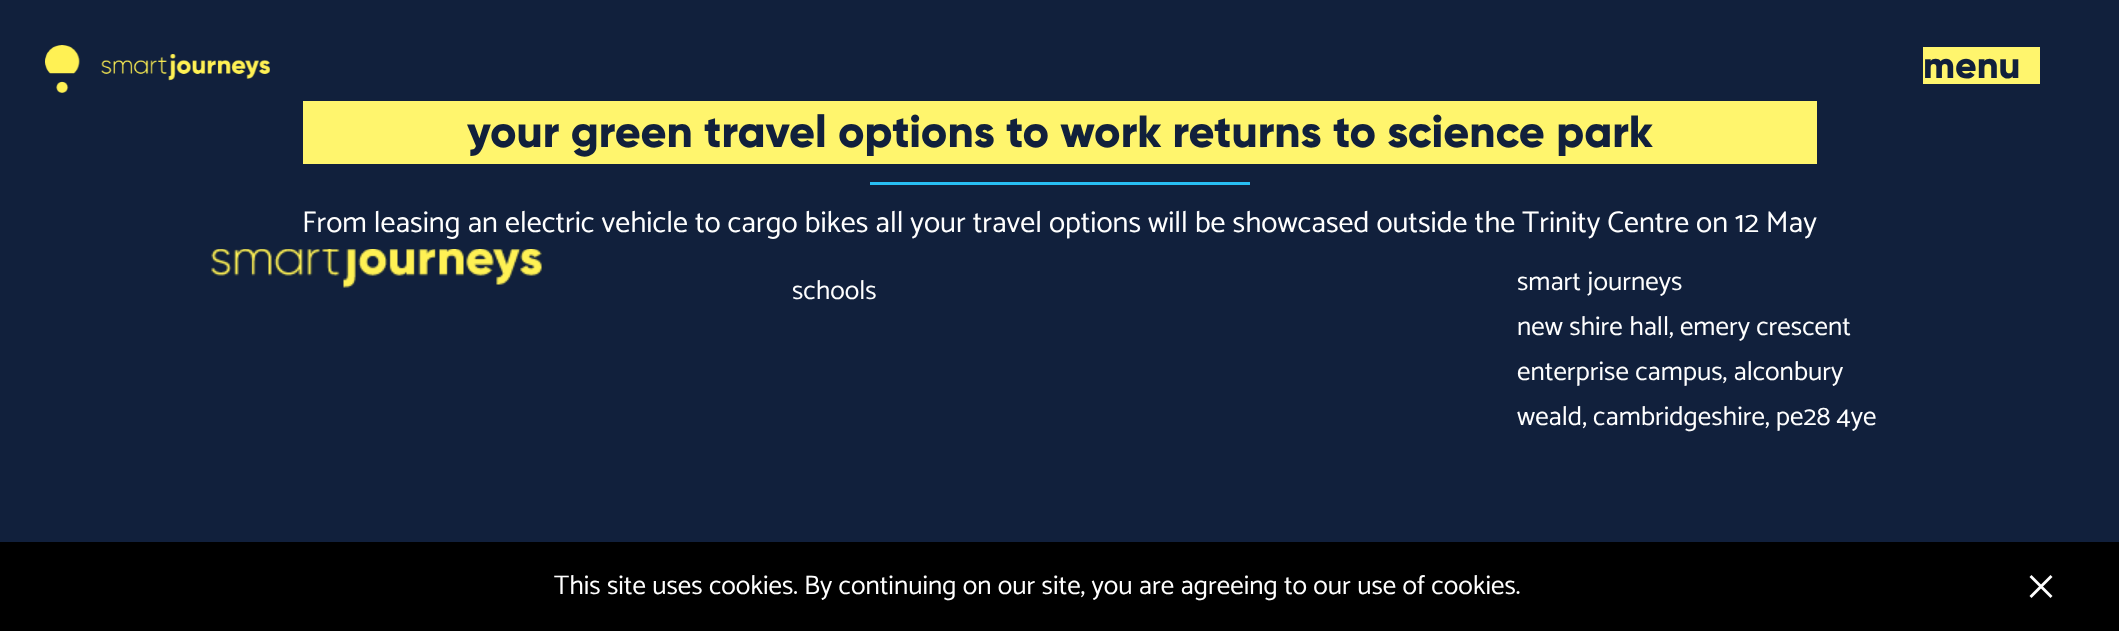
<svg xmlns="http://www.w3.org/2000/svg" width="2119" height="631">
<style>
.a{font:800 37.5px Gilroy;fill:#11203c}
.b{font:800 45px Gilroy;fill:#11203c}
.c{font:30px Catamaran;fill:#fff}
.d{font:27px Catamaran;fill:#fff}
</style>
<rect width="100%" height="100%" fill="#11203c"/>
<image href="1.png" x="45" y="45" width="225" height="48"/>
<path fill="#fff56d" d="M1923 47h117v37H1923z"/>
<path fill="#fff56d" d="M303 101h1514v63H303z"/>
<path fill="#28bef3" d="M870 182h380v3H870z"/>
<image href="2.png" x="211" y="249" width="331" height="39"/>
<path fill="#000" d="M0 542h2119v89H0z"/>
<path fill="#fff" d="M2050.5 575l2 2l-21 21l-2-2z"/>
<path fill="#fff" d="M2029.5 577l2-2l21 21l-2 2z"/>
<text class="a" x="1923" y="78">menu</text>
<text class="b" x="467" y="147">your green travel options to work returns to science park</text>
<text class="c" x="302" y="232">From leasing an electric vehicle to cargo bikes all your travel options will be showcased outside the Trinity Centre on 12 May</text>
<text class="d" x="792" y="299">schools</text>
<text class="d" x="1517" y="290">smart journeys</text>
<text class="d" x="1517" y="335">new shire hall, emery crescent</text>
<text class="d" x="1517" y="380">enterprise campus, alconbury</text>
<text class="d" x="1517" y="425">weald, cambridgeshire, pe28 4ye</text>
<text class="d" x="554" y="594">This site uses cookies. By continuing on our site, you are agreeing to our use of cookies.</text>
</svg>
